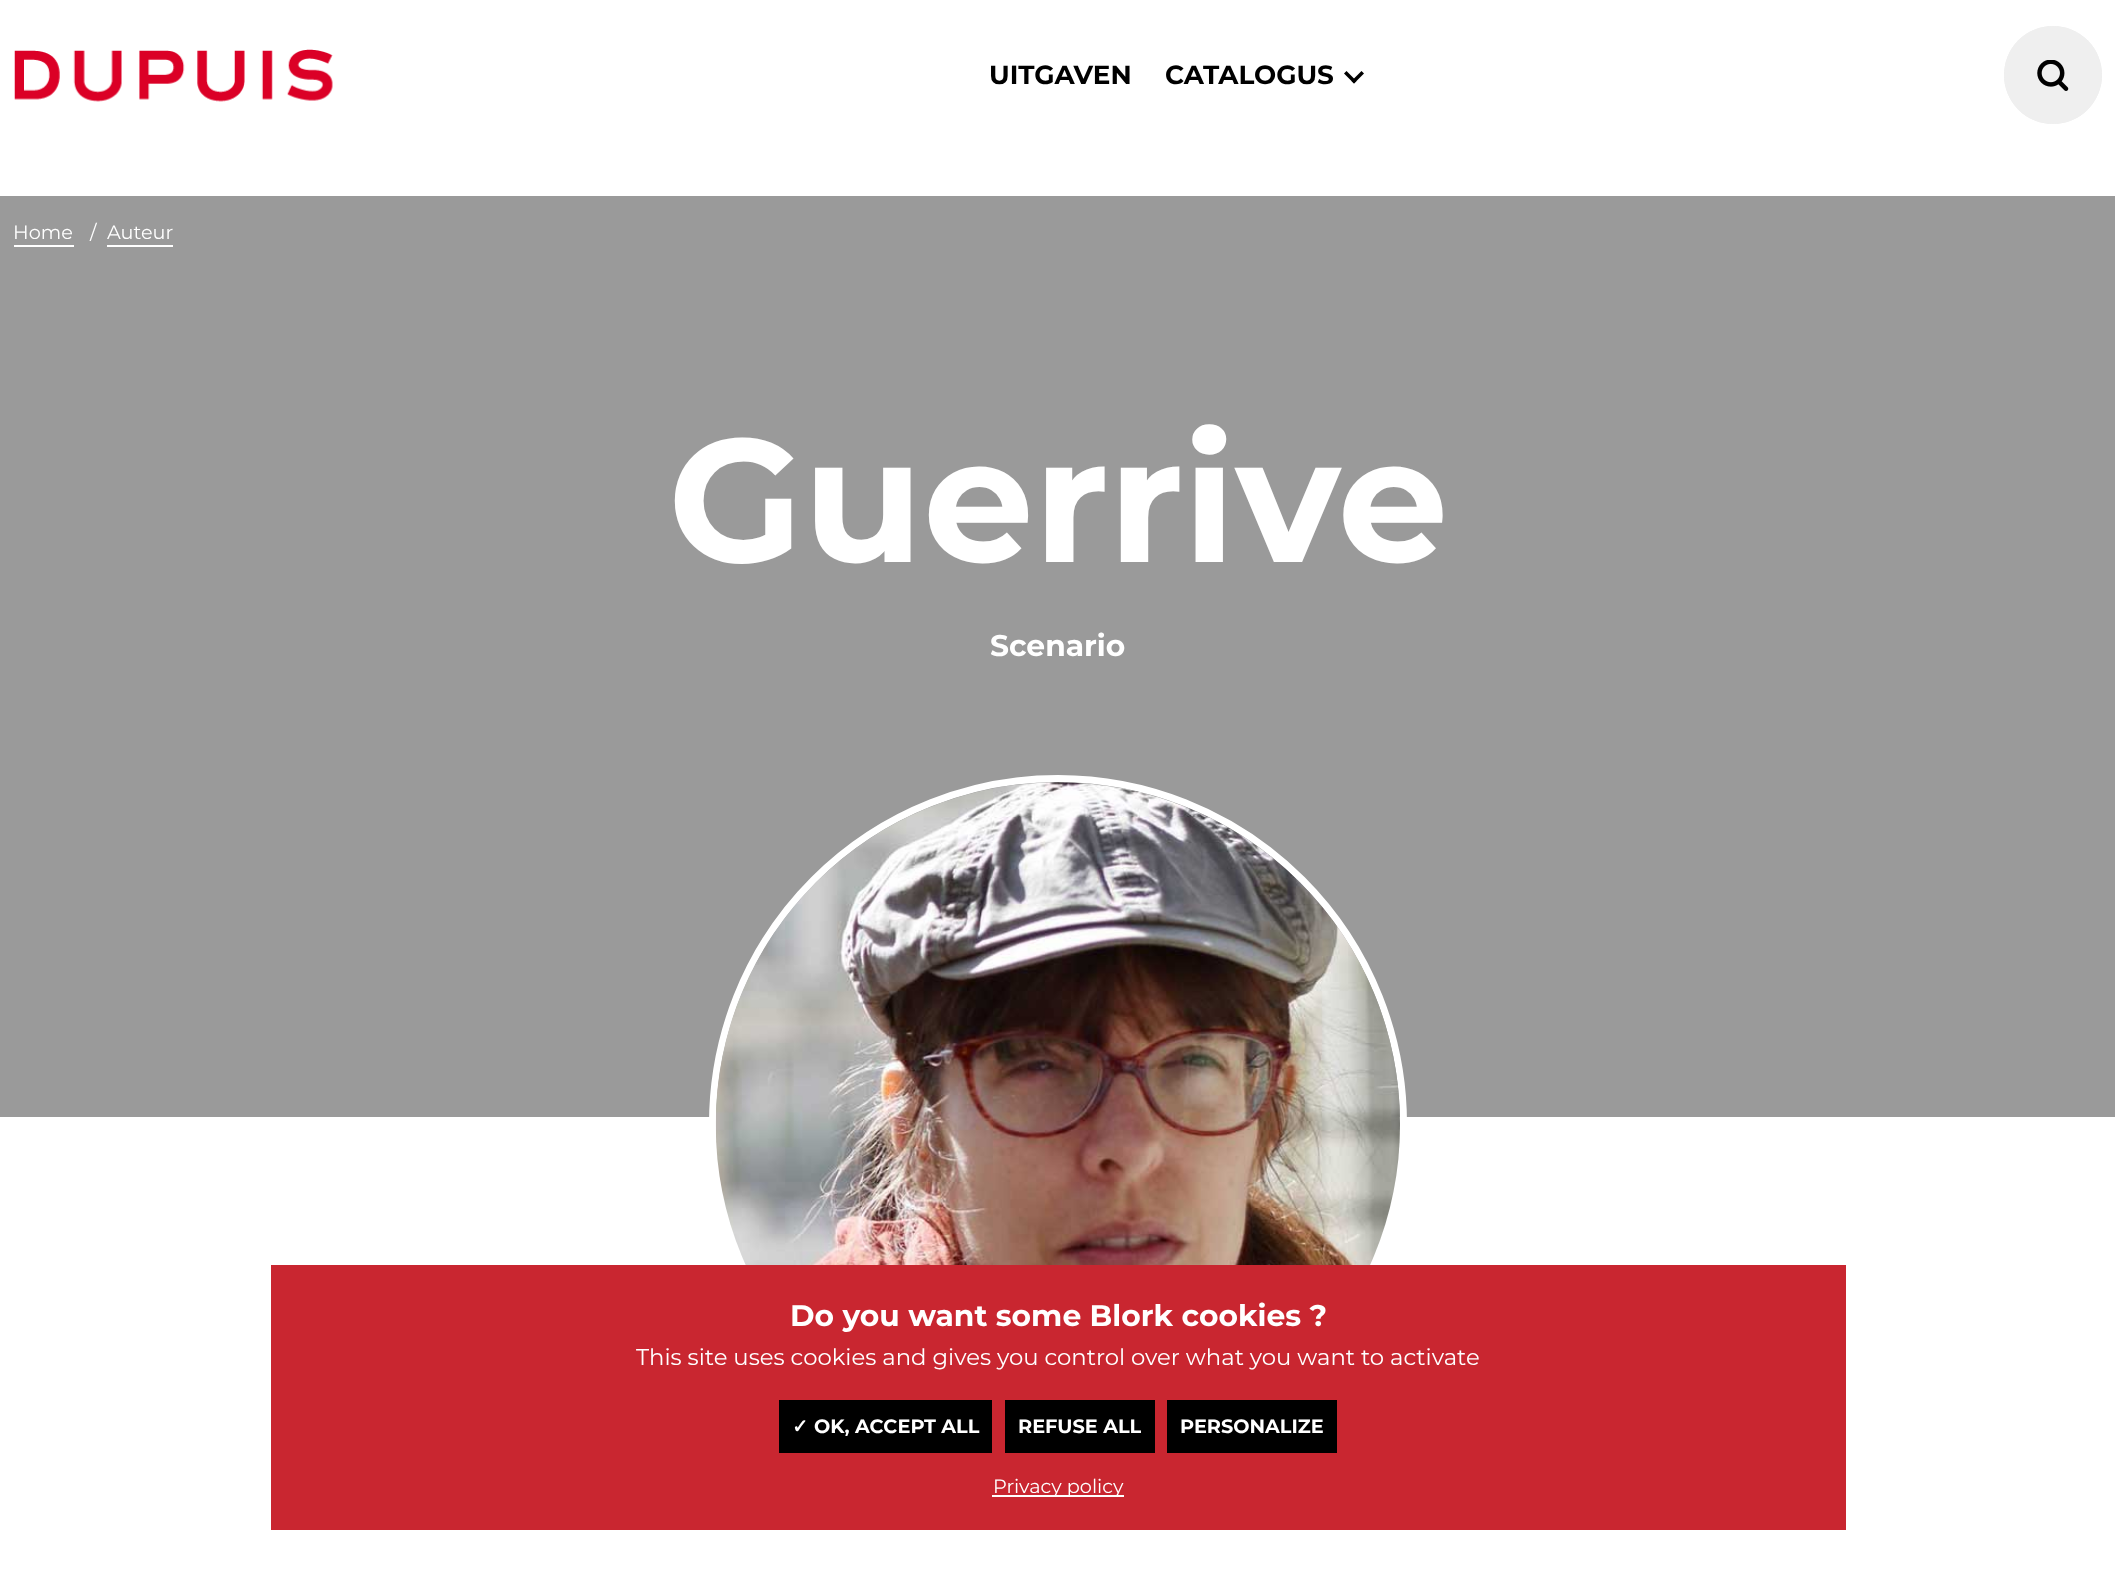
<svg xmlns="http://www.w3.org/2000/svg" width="2115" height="1590">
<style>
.a{font:bold 26.25px Montserrat;fill:#000}
.b{font:19.25px Montserrat;fill:#fff}
.c{font:bold 175px Montserrat;fill:#fff}
.d{font:bold 29.75px Montserrat;fill:#fff}
.e{font:22.75px Montserrat;fill:#fff}
.f{font:bold 19.25px DejaVu Sans;fill:#fff}
.g{font:bold 19.25px Montserrat;fill:#fff}
</style>
<rect width="100%" height="100%" fill="#fff"/>
<image href="1.png" x="14" y="49" width="319" height="53"/>
<path fill="#000" d="M1361.5 71l2.5 2.5l-10 10l-2.5-2.5z"/>
<path fill="#000" d="M1346.5 71l10 10l-2.5 2.5l-10-10z"/>
<circle fill="#eee" cx="2053" cy="75" r="49"/>
<circle fill="#eeeeeee6" cx="2053" cy="75" r="49"/>
<image href="2.png" x="2037" y="60" width="32" height="31"/>
<path fill="#9a9a9a" d="M0 196h2115v921H0z"/>
<path fill="#fff" d="M14 245h60v2H14z"/>
<path fill="#fff" d="M107 245h66v2H107z"/>
<rect fill="none" stroke="#fff" stroke-width="7" x="712.5" y="778.5" width="691" height="692" rx="345.5"/>
<image href="3.png" x="715" y="782" width="685" height="483"/>
<path fill="#c92630" d="M271 1265h1575v265H271z"/>
<path fill="#000" d="M779 1400h213v53H779z"/>
<path fill="#000" d="M1005 1400h150v53H1005z"/>
<path fill="#000" d="M1167 1400h170v53H1167z"/>
<path fill="#fff" d="M992 1495h132v2H992z"/>
<text class="a" x="989" y="84">UITGAVEN</text>
<text class="a" x="1165" y="84">CATALOGUS</text>
<text class="b" x="13" y="239">Home</text>
<text class="b" x="90" y="239">/</text>
<text class="b" x="107" y="239">Auteur</text>
<text class="c" x="668" y="562">Guerrive</text>
<text class="d" x="990" y="656">Scenario</text>
<text class="d" x="790" y="1326">Do you want some Blork cookies ?</text>
<text class="e" x="636" y="1365">This site uses cookies and gives you control over what you want to activate</text>
<text class="f" x="792" y="1433">✓</text>
<text class="g" x="814" y="1433">OK, ACCEPT ALL</text>
<text class="g" x="1018" y="1433">REFUSE ALL</text>
<text class="g" x="1180" y="1433">PERSONALIZE</text>
<text class="b" x="993" y="1493">Privacy policy</text>
</svg>
